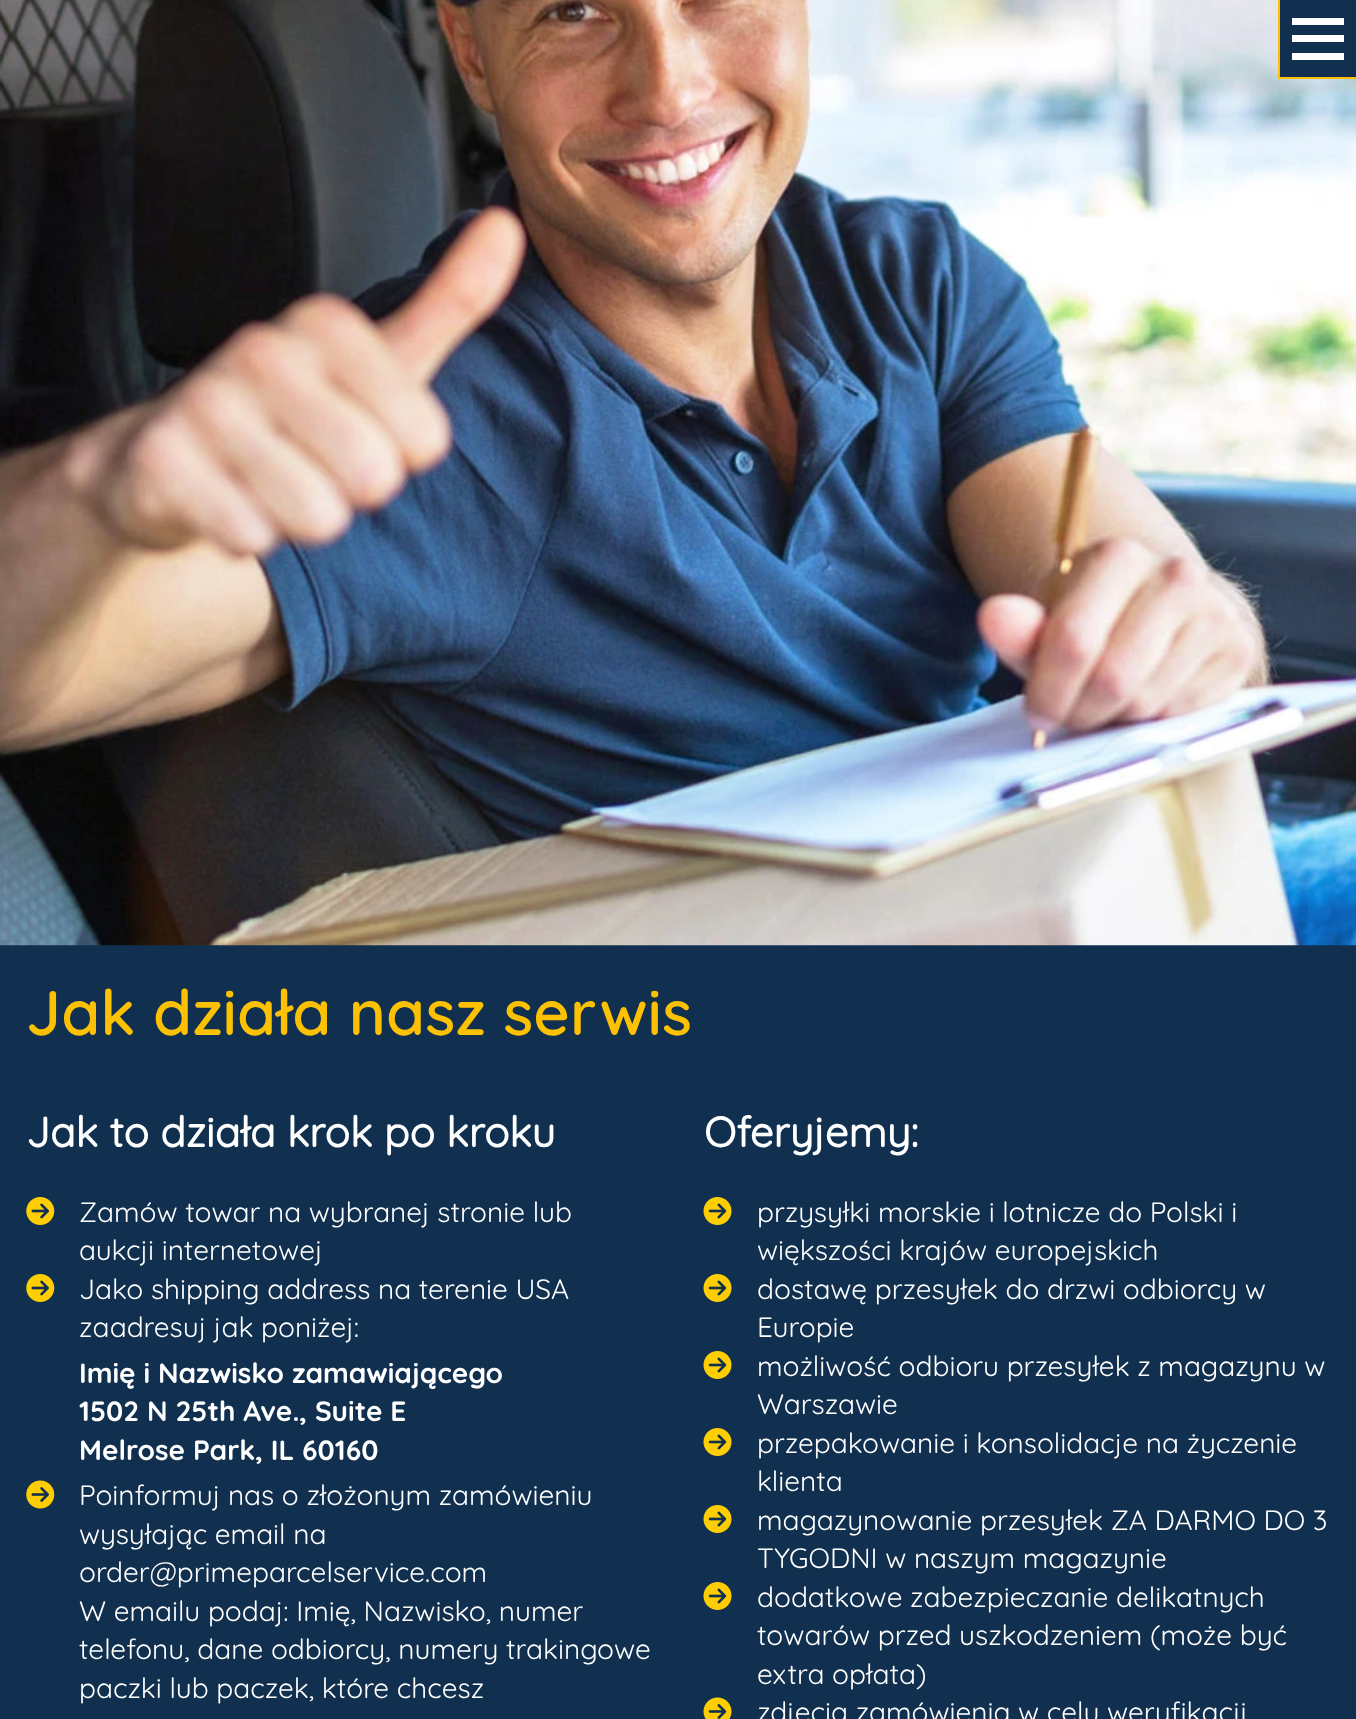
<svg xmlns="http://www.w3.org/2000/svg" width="1356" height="1719">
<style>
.a{font:600 63px Quicksand;fill:#fdc103}
.b{font:bold 42px Quicksand;fill:#fff}
.c{font:28px Quicksand;fill:#fff}
.d{font:bold 28px 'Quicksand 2';fill:#fff}
</style>
<rect width="100%" height="100%" fill="#11304f"/>
<image href="1.png" x="0" y="0" width="1356" height="946"/>
<path fill="#11304f" d="M1280 0h76v77H1280z"/>
<path fill="#febf02" d="M1278 77h78v2H1278z"/>
<path fill="#febf02" d="M1278 0h2v79H1278z"/>
<path fill="#fff" d="M1292 18h52v7H1292z"/>
<path fill="#fff" d="M1292 35h52v7H1292z"/>
<path fill="#fff" d="M1292 53h52v7H1292z"/>
<image href="2.png" x="26" y="1197" width="29" height="28"/>
<image href="2.png" x="26" y="1274" width="29" height="28"/>
<image href="3.png" x="26" y="1480" width="29" height="29"/>
<image href="4.png" x="703" y="1197" width="29" height="28"/>
<image href="4.png" x="703" y="1274" width="29" height="28"/>
<image href="4.png" x="703" y="1351" width="29" height="28"/>
<image href="4.png" x="703" y="1428" width="29" height="28"/>
<image href="4.png" x="703" y="1505" width="29" height="28"/>
<image href="4.png" x="703" y="1582" width="29" height="28"/>
<image href="5.png" x="703" y="1697" width="29" height="22"/>
<text class="a" x="26" y="1035">Jak działa nasz serwis</text>
<text class="b" x="26" y="1147">Jak to działa krok po kroku</text>
<text class="c" x="79" y="1222">Zamów towar na wybranej stronie lub</text>
<text class="c" x="79" y="1260">aukcji internetowej</text>
<text class="c" x="79" y="1299">Jako shipping address na terenie USA</text>
<text class="c" x="79" y="1337">zaadresuj jak poniżej:</text>
<text class="d" x="79" y="1383">Imię i Nazwisko zamawiającego</text>
<text class="d" x="79" y="1421">1502 N 25th Ave., Suite E</text>
<text class="d" x="79" y="1460">Melrose Park, IL 60160</text>
<text class="c" x="79" y="1505">Poinformuj nas o złożonym zamówieniu</text>
<text class="c" x="79" y="1544">wysyłając email na</text>
<text class="c" x="79" y="1582">order@primeparcelservice.com</text>
<text class="c" x="79" y="1621">W emailu podaj: Imię, Nazwisko, numer</text>
<text class="c" x="79" y="1659">telefonu, dane odbiorcy, numery trakingowe</text>
<text class="c" x="79" y="1698">paczki lub paczek, które chcesz</text>
<text class="b" x="704" y="1147">Oferyjemy:</text>
<text class="c" x="757" y="1222">przysyłki morskie i lotnicze do Polski i</text>
<text class="c" x="757" y="1260">większości krajów europejskich</text>
<text class="c" x="757" y="1299">dostawę przesyłek do drzwi odbiorcy w</text>
<text class="c" x="757" y="1337">Europie</text>
<text class="c" x="757" y="1376">możliwość odbioru przesyłek z magazynu w</text>
<text class="c" x="757" y="1414">Warszawie</text>
<text class="c" x="757" y="1453">przepakowanie i konsolidacje na życzenie</text>
<text class="c" x="757" y="1491">klienta</text>
<text class="c" x="757" y="1530">magazynowanie przesyłek ZA DARMO DO 3</text>
<text class="c" x="757" y="1568">TYGODNI w naszym magazynie</text>
<text class="c" x="757" y="1607">dodatkowe zabezpieczanie delikatnych</text>
<text class="c" x="757" y="1645">towarów przed uszkodzeniem (może być</text>
<text class="c" x="757" y="1684">extra opłata)</text>
<text class="c" x="757" y="1722">zdjęcia zamówienia w celu weryfikacji</text>
</svg>
